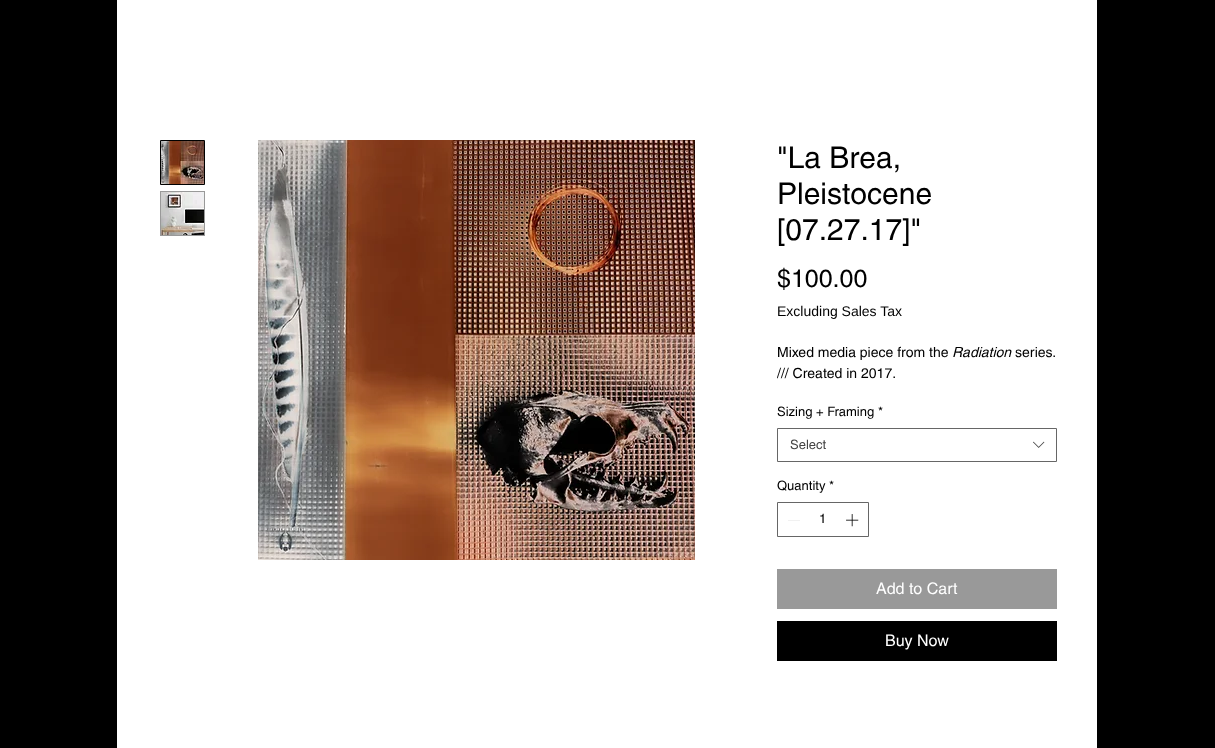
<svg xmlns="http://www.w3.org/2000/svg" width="1215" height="748">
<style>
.a{font:30px helvetica;fill:#000}
.b{font:25px helvetica;fill:#000}
.c{font:14px Liberation Sans;fill:#000}
.d{font:14px helvetica;fill:#000}
.e{font:italic 14px helvetica;fill:#000}
.f{font:13px helvetica;fill:#000}
.g{font:13px helvetica;fill:#444}
.h{font:16px helvetica;fill:#fff}
</style>
<defs>
<clipPath id="clip1"><path d="M777 342h280v42H777z"/></clipPath>
</defs>
<rect width="100%" height="100%" fill="#000"/>
<path fill="#fff" d="M117 0h980v748H117z"/>
<path fill="none" stroke="#000" d="M160.5 140.5h44v44H160.5z"/>
<image href="1.png" x="161" y="141" width="43" height="43"/>
<path fill="#999" d="M160 191h45v45H160z"/>
<image href="2.png" x="161" y="192" width="43" height="43"/>
<image href="3.png" x="258" y="140" width="437" height="420"/>
<path fill="none" stroke="#666" d="M777.5 428.5h279v33H777.5z"/>
<image href="4.png" x="1033" y="441" width="12" height="7"/>
<path fill="none" stroke="#666" d="M777.5 502.5h91v34H777.5z"/>
<path fill="#e3e3e3" fill-rule="evenodd" d="M800 520v.5h-12v-.5z"/>
<image href="5.png" x="846" y="514" width="13" height="13"/>
<path fill="#999" d="M777 569h280v40H777z"/>
<path fill="#000" d="M777 621h280v40H777z"/>
<text class="a" x="777" y="168">"La Brea,</text>
<text class="a" x="777" y="204">Pleistocene</text>
<text class="a" x="777" y="240">[07.27.17]"</text>
<text class="b" x="777" y="287">$100.00</text>
<text class="c" x="777" y="316">Excluding Sales Tax</text>
<text class="d" x="777" y="357">Mixed media piece from the</text>
<text class="e" x="952" y="357">Radiation</text>
<text class="d" x="1015" y="357">series.</text>
<g clip-path="url(#clip1)">
<text class="d" x="777" y="378">/// Created in 2017.</text>
</g>
<text class="f" x="777" y="416">Sizing + Framing</text>
<text class="f" x="878" y="416">*</text>
<text class="g" x="790" y="449">Select</text>
<text class="f" x="777" y="490">Quantity</text>
<text class="f" x="829" y="490">*</text>
<text class="f" x="819" y="523">1</text>
<text class="h" x="876" y="594">Add to Cart</text>
<text class="h" x="885" y="646">Buy Now</text>
</svg>
